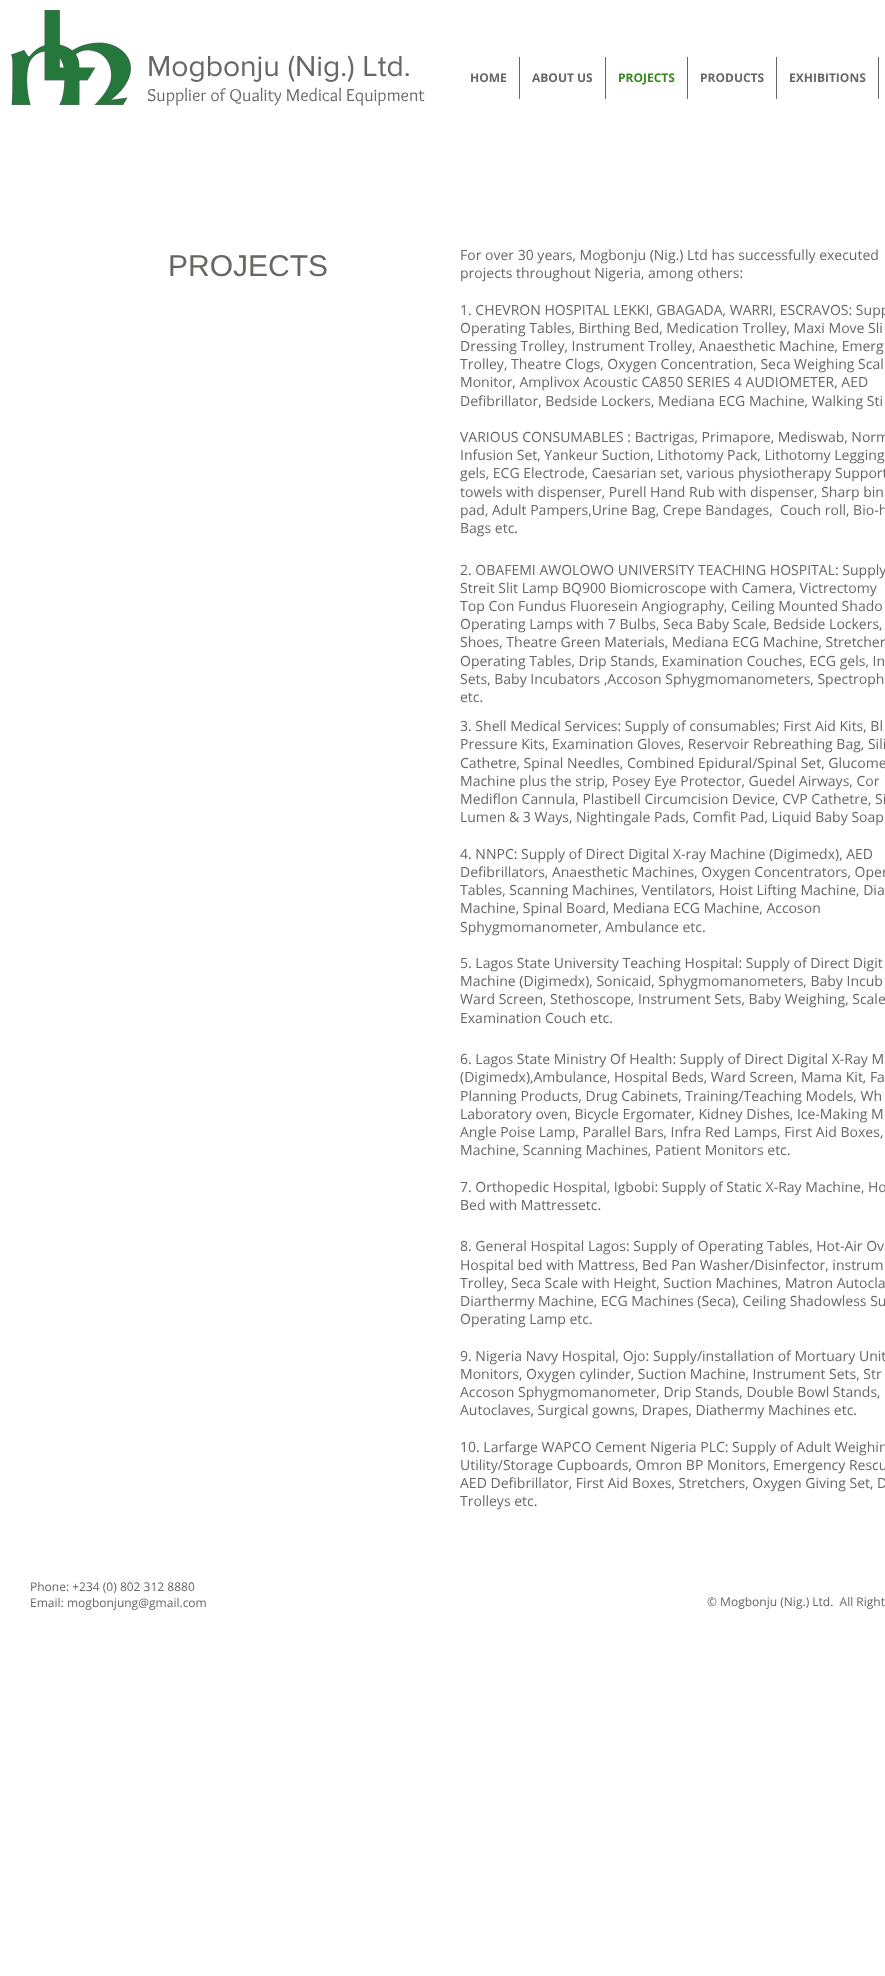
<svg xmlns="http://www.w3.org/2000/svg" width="885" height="1976">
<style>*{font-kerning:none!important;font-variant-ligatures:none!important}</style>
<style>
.a{font:30px 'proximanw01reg';fill:#676765}
.b{font:bold 12px Open Sans;fill:#676765}
.c{font:bold 12px Open Sans;fill:#378820}
.d{font:18px Overlock;fill:#676765}
.e{font:30px Liberation Sans;fill:#676765}
.f{font:14px Open Sans;fill:#676765}
.g{font:12px Open Sans;fill:#676765}
</style>
<rect width="100%" height="100%" fill="#fff"/>
<image href="1.png" x="11" y="10" width="120" height="95"/>
<path fill="#676765" d="M519 57h1v42H519z"/>
<path fill="#676765" d="M605 57h1v42H605z"/>
<path fill="#676765" d="M687 57h1v42H687z"/>
<path fill="#676765" d="M776 57h1v42H776z"/>
<path fill="#676765" d="M878 57h1v42H878z"/>
<text class="a" x="147" y="76">Mogbonju (Nig.) Ltd.</text>
<text class="b" x="470" y="82">HOME</text>
<text class="b" x="532" y="82">ABOUT US</text>
<text class="c" x="618" y="82">PROJECTS</text>
<text class="b" x="700" y="82">PRODUCTS</text>
<text class="b" x="789" y="82">EXHIBITIONS</text>
<text class="d" x="147" y="101">Supplier of Quality Medical Equipment</text>
<text class="e" x="168" y="276">PROJECTS</text>
<text class="f" x="460" y="260">For over 30 years, Mogbonju (Nig.) Ltd has successfully executed</text>
<text class="f" x="460" y="278">projects throughout Nigeria, among others:</text>
<text class="f" x="460" y="315">1. CHEVRON HOSPITAL LEKKI, GBAGADA, WARRI, ESCRAVOS: Supp</text>
<text class="f" x="460" y="333">Operating Tables, Birthing Bed, Medication Trolley, Maxi Move</text>
<text class="f" x="868" y="333">Sli</text>
<text class="f" x="460" y="351">Dressing Trolley, Instrument Trolley,</text>
<text class="f" x="699" y="351">Anaesthetic Machine, Emerg</text>
<text class="f" x="460" y="369">Trolley, Theatre Clogs, Oxygen Concentration, Seca Weighing Scal</text>
<text class="f" x="460" y="387">Monitor, Amplivox Acoustic CA850 SERIES 4 AUDIOMETER, AED</text>
<text class="f" x="460" y="406">Defibrillator, Bedside Lockers, Mediana ECG Machine, Walking Sti</text>
<text class="f" x="460" y="442">VARIOUS CONSUMABLES : Bactrigas, Primapore, Mediswab, Norm</text>
<text class="f" x="460" y="460">Infusion Set, Yankeur Suction, Lithotomy Pack, Lithotomy Legging</text>
<text class="f" x="460" y="478">gels, ECG Electrode, Caesarian set, various physiotherapy Support</text>
<text class="f" x="460" y="497">towels with dispenser, Purell Hand Rub with dispenser, Sharp bin</text>
<text class="f" xml:space="preserve" x="460" y="515">pad, Adult Pampers,Urine Bag, Crepe Bandages,  Couch roll, Bio-h</text>
<text class="f" x="460" y="533">Bags etc.</text>
<text class="f" x="460" y="575">2. OBAFEMI AWOLOWO UNIVERSITY TEACHING HOSPITAL: Supply</text>
<text class="f" x="460" y="593">Streit Slit Lamp BQ900 Biomicroscope with Camera, Victrectomy</text>
<text class="f" x="460" y="611">Top Con Fundus Fluoresein Angiography, Ceiling Mounted Shado</text>
<text class="f" x="460" y="629">Operating Lamps with 7 Bulbs, Seca Baby Scale, Bedside Lockers,</text>
<text class="f" x="460" y="647">Shoes, Theatre Green Materials, Mediana ECG Machine, Stretcher</text>
<text class="f" x="460" y="666">Operating Tables, Drip Stands, Examination Couches, ECG gels, In</text>
<text class="f" x="460" y="684">Sets, Baby Incubators ,Accoson Sphygmomanometers, Spectroph</text>
<text class="f" x="460" y="702">etc.</text>
<text class="f" x="460" y="731">3. Shell Medical Services: Supply of consumables; First Aid Kits, Bl</text>
<text class="f" x="460" y="749">Pressure Kits, Examination Gloves, Reservoir Rebreathing Bag, Sili</text>
<text class="f" x="460" y="768">Cathetre, Spinal Needles, Combined Epidural/Spinal Set, Glucome</text>
<text class="f" x="460" y="786">Machine plus the strip, Posey Eye Protector, Guedel Airways, Cor</text>
<text class="f" x="460" y="804">Mediflon Cannula, Plastibell Circumcision Device, CVP Cathetre, Si</text>
<text class="f" x="460" y="822">Lumen &amp; 3 Ways, Nightingale Pads, Comfit Pad, Liquid Baby Soap</text>
<text class="f" x="460" y="859">4. NNPC: Supply of Direct Digital X-ray Machine (Digimedx), AED</text>
<text class="f" x="460" y="877">Defibrillators, Anaesthetic Machines, Oxygen Concentrators, Oper</text>
<text class="f" x="460" y="895">Tables, Scanning Machines, Ventilators, Hoist Lifting Machine, Dia</text>
<text class="f" x="460" y="913">Machine, Spinal Board, Mediana ECG Machine, Accoson</text>
<text class="f" x="460" y="932">Sphygmomanometer, Ambulance etc.</text>
<text class="f" x="460" y="968">5. Lagos State University Teaching Hospital: Supply of Direct Digit</text>
<text class="f" x="460" y="986">Machine (Digimedx), Sonicaid, Sphygmomanometers, Baby Incub</text>
<text class="f" x="460" y="1004">Ward Screen, Stethoscope, Instrument Sets, Baby Weighing, Scale</text>
<text class="f" x="460" y="1023">Examination Couch etc.</text>
<text class="f" x="460" y="1064">6. Lagos State Ministry Of Health: Supply of Direct Digital X-Ray M</text>
<text class="f" x="460" y="1082">(Digimedx),Ambulance, Hospital Beds, Ward Screen, Mama Kit, Fa</text>
<text class="f" x="460" y="1101">Planning Products, Drug Cabinets, Training/Teaching Models, Wh</text>
<text class="f" x="460" y="1119">Laboratory oven, Bicycle Ergomater, Kidney Dishes, Ice-Making M</text>
<text class="f" x="460" y="1137">Angle Poise Lamp, Parallel Bars, Infra Red Lamps, First Aid Boxes,</text>
<text class="f" x="460" y="1155">Machine, Scanning Machines, Patient Monitors etc.</text>
<text class="f" x="460" y="1192">7. Orthopedic Hospital, Igbobi: Supply of Static X-Ray Machine, Ho</text>
<text class="f" x="460" y="1210">Bed with Mattressetc.</text>
<text class="f" x="460" y="1251">8. General Hospital Lagos: Supply of Operating Tables, Hot-Air Ov</text>
<text class="f" x="460" y="1270">Hospital bed with Mattress, Bed Pan Washer/Disinfector, instrum</text>
<text class="f" x="460" y="1288">Trolley, Seca Scale with Height, Suction Machines, Matron Autocla</text>
<text class="f" x="460" y="1306">Diarthermy Machine, ECG Machines (Seca), Ceiling Shadowless Su</text>
<text class="f" x="460" y="1324">Operating Lamp etc.</text>
<text class="f" x="460" y="1361">9. Nigeria Navy Hospital, Ojo: Supply/installation of Mortuary Unit</text>
<text class="f" x="460" y="1379">Monitors, Oxygen cylinder, Suction Machine, Instrument Sets, Str</text>
<text class="f" x="460" y="1397">Accoson Sphygmomanometer, Drip Stands, Double Bowl Stands,</text>
<text class="f" x="460" y="1415">Autoclaves, Surgical gowns, Drapes, Diathermy Machines etc.</text>
<text class="f" x="460" y="1452">10. Larfarge WAPCO Cement Nigeria PLC: Supply of Adult Weighin</text>
<text class="f" x="460" y="1470">Utility/Storage Cupboards, Omron BP Monitors, Emergency Rescu</text>
<text class="f" x="460" y="1488">AED Defibrillator, First Aid Boxes, Stretchers, Oxygen Giving Set, D</text>
<text class="f" x="460" y="1506">Trolleys etc.</text>
<text class="g" x="30" y="1591">Phone: +234 (0) 802 312 8880</text>
<text class="g" x="30" y="1607">Email: mogbonjung@gmail.com</text>
<text class="g" xml:space="preserve" x="707" y="1606">© Mogbonju (Nig.) Ltd.  All Right</text>
</svg>
